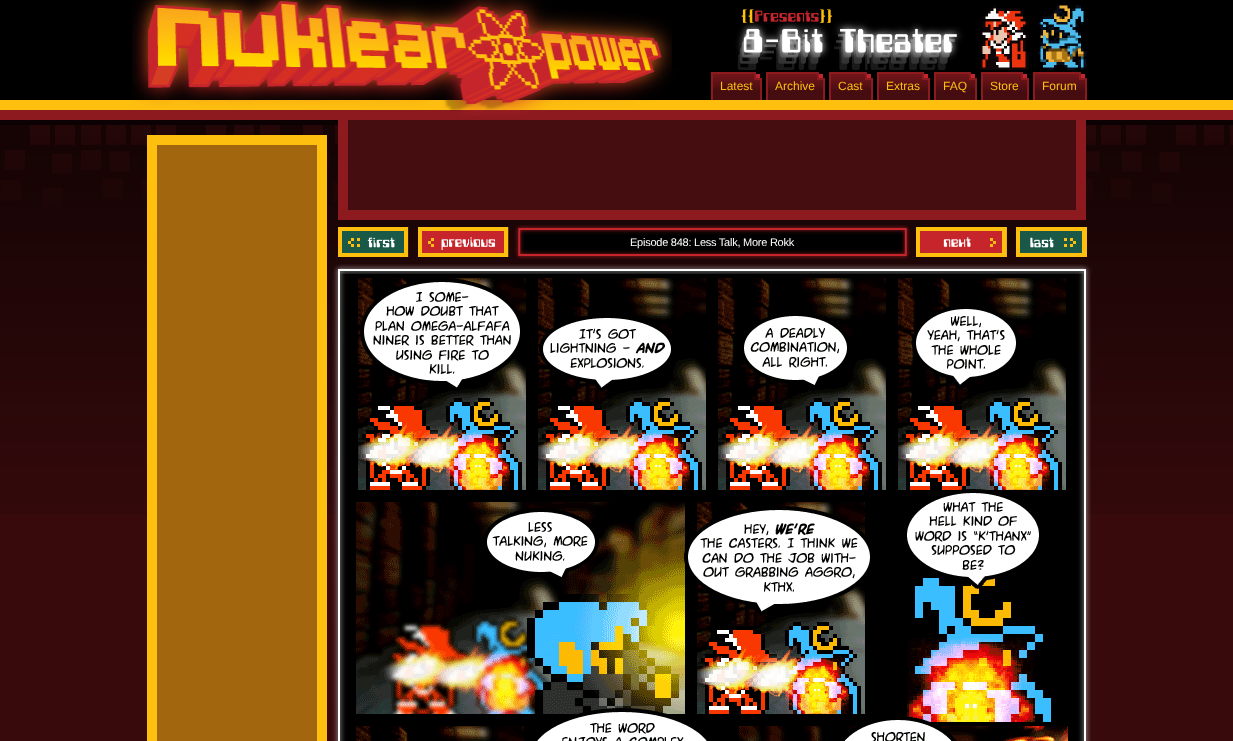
<svg xmlns="http://www.w3.org/2000/svg" width="1233" height="741">
<style>
.a{font:12px Liberation Sans;fill:#febf0f}
.b{font:11px Liberation Sans;letter-spacing:-0.25px;fill:#fff}
</style>
<rect width="100%" height="100%" fill="#380a0c"/>
<image href="1.png" x="0" y="0" width="1233" height="515"/>
<image href="2.png" x="132" y="0" width="546" height="116"/>
<image href="3.png" x="672" y="5" width="415" height="65"/>
<image href="4.png" x="713" y="72" width="49" height="28"/>
<path fill="#8c1a1f" d="M711 72h2v28H711z"/>
<image href="5.png" x="768" y="72" width="57" height="28"/>
<path fill="#8c1a1f" d="M766 72h2v28H766z"/>
<image href="6.png" x="831" y="72" width="42" height="28"/>
<path fill="#8c1a1f" d="M829 72h2v28H829z"/>
<image href="7.png" x="879" y="72" width="51" height="28"/>
<path fill="#8c1a1f" d="M877 72h2v28H877z"/>
<image href="8.png" x="936" y="72" width="41" height="28"/>
<path fill="#8c1a1f" d="M934 72h2v28H934z"/>
<image href="9.png" x="983" y="72" width="46" height="28"/>
<path fill="#8c1a1f" d="M981 72h2v28H981z"/>
<image href="10.png" x="1035" y="72" width="52" height="28"/>
<path fill="#8c1a1f" d="M1033 72h2v28H1033z"/>
<path fill="#a2660f" stroke="#febf0f" stroke-width="10" d="M152 140h170v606H152z"/>
<path fill="#460d10" d="M348 120h728v90H348z"/>
<path fill="#8c1a1f" d="M1076 120h10v90H1076z"/>
<path fill="#8c1a1f" d="M348 210h738v10H348z"/>
<path fill="#8c1a1f" d="M338 120h10v100H338z"/>
<image href="11.png" x="338" y="225" width="749" height="34"/>
<image href="12.png" x="342" y="231" width="63" height="22"/>
<image href="13.png" x="418" y="227" width="87" height="30"/>
<image href="14.png" x="916" y="227" width="87" height="30"/>
<image href="15.png" x="1016" y="227" width="67" height="30"/>
<image href="16.png" x="333" y="264" width="759" height="10"/>
<image href="17.png" x="332" y="274" width="759" height="467"/>
<image href="18.png" x="356" y="278" width="712" height="463"/>
<text class="a" x="720" y="90">Latest</text>
<text class="a" x="775" y="90">Archive</text>
<text class="a" x="838" y="90">Cast</text>
<text class="a" x="886" y="90">Extras</text>
<text class="a" x="943" y="90">FAQ</text>
<text class="a" x="990" y="90">Store</text>
<text class="a" x="1042" y="90">Forum</text>
<text class="b" x="630" y="246">Episode 848: Less Talk, More Rokk</text>
</svg>
